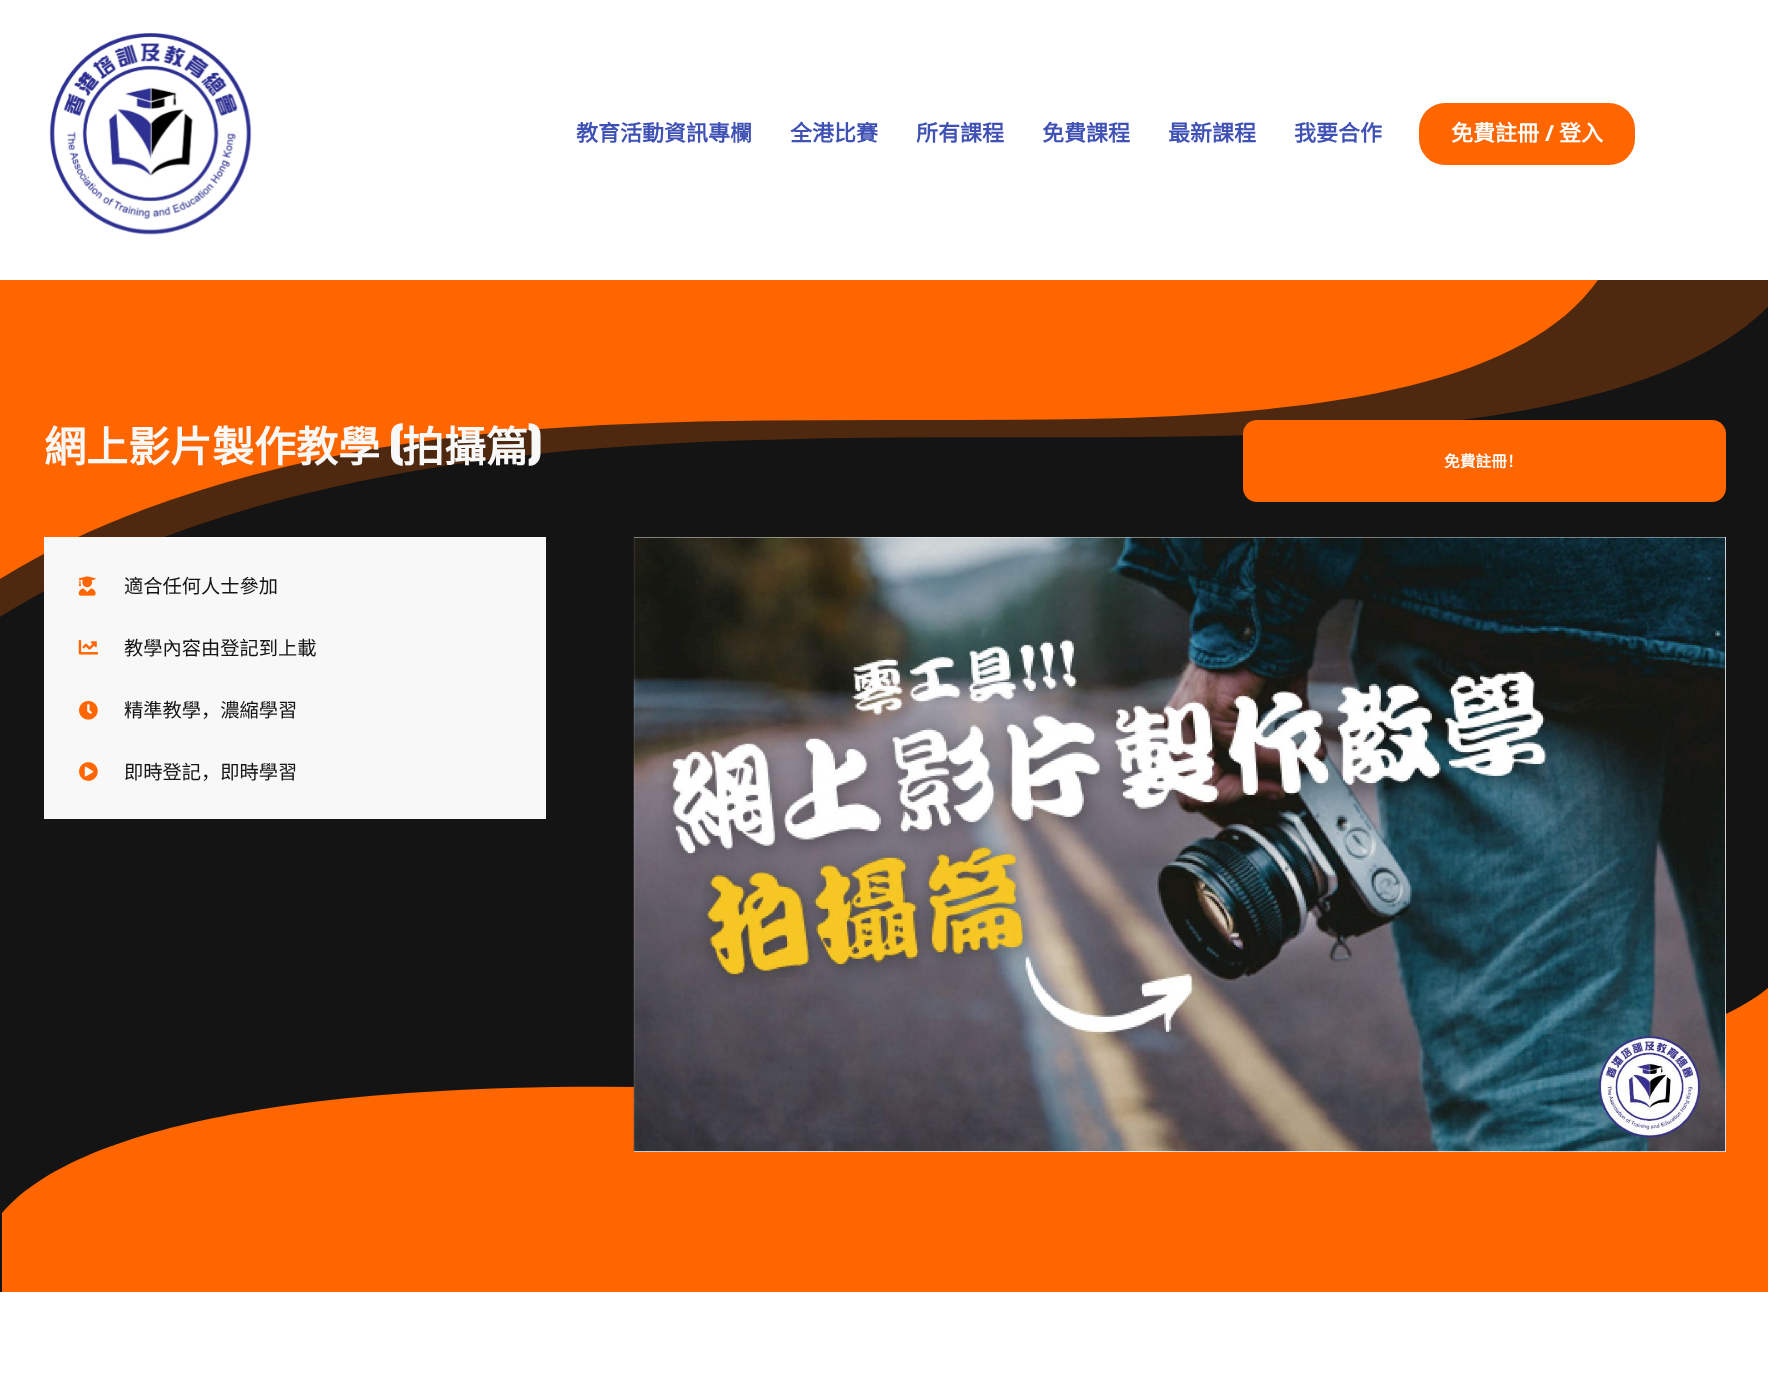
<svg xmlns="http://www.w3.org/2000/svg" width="1768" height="1379">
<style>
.a{font:bold 22px Noto Sans CJK SC;fill:#3f51b5}
.b{font:bold 22px Noto Sans CJK SC;fill:#fff}
.c{font:bold 22px Open Sans;fill:#fff}
.d{font:bold 42px Noto Sans CJK SC;fill:#f8f8f8}
.e{font:bold 42px Anton;fill:#f8f8f8}
.f{font:bold 15.75px Noto Sans CJK SC;fill:#fff}
.g{font:19.25px Noto Sans CJK SC;fill:#141414}
</style>
<defs>
<clipPath id="clip1"><path d="M0 280h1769v350H0z"/></clipPath>
<clipPath id="clip2"><path d="M2 942h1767v350H2z"/></clipPath>
</defs>
<rect width="100%" height="100%" fill="#fff"/>
<image href="1.png" x="49" y="33" width="203" height="202"/>
<rect fill="#f60" x="1419" y="103" width="216" height="62" rx="26"/>
<path fill="#141414" d="M0 307h1768v985H0z"/>
<g clip-path="url(#clip1)">
<path fill="#4f290f" d="M426 469c252-42 526-28 788-33c215-5 492-24 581-162h-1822v361c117-82 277-137 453-166z"/>
<path fill="#f60" d="M378 448c225-37 470-25 705-29c192-4 440-21 519-145h-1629v323c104-73 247-122 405-149z"/>
</g>
<rect fill="#f60" x="1243" y="420" width="483" height="82" rx="14"/>
<path fill="#f8f8f8" d="M44 537h502v282H44z"/>
<image href="2.png" x="78" y="576" width="18" height="20"/>
<image href="3.png" x="78" y="640" width="20" height="15"/>
<image href="4.png" x="79" y="701" width="19" height="19"/>
<image href="5.png" x="79" y="762" width="19" height="19"/>
<g clip-path="url(#clip2)">
<path fill="#f60" d="M816 1093c-432-24-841 17-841 190v14h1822v-361c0 131-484 184-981 157z"/>
</g>
<path fill="#fff" d="M634 537h1092v615H634z"/>
<image href="6.png" x="633" y="537" width="1093" height="615"/>
<text class="a" x="576" y="141">教育活動資訊專欄</text>
<text class="a" x="790" y="141">全港比賽</text>
<text class="a" x="916" y="141">所有課程</text>
<text class="a" x="1042" y="141">免費課程</text>
<text class="a" x="1168" y="141">最新課程</text>
<text class="a" x="1294" y="141">我要合作</text>
<text class="b" x="1451" y="141">免費註冊</text>
<text class="c" x="1545" y="141">/</text>
<text class="b" x="1559" y="141">登入</text>
<text class="d" x="44" y="462">網上影片製作教學</text>
<text class="e" x="390" y="462">(</text>
<text class="d" x="402" y="462">拍攝篇</text>
<text class="e" x="528" y="462">)</text>
<text class="f" x="1444" y="467">免費註冊！</text>
<text class="g" x="124" y="593">適合任何人士參加</text>
<text class="g" x="124" y="655">教學內容由登記到上載</text>
<text class="g" x="124" y="717">精準教學，濃縮學習</text>
<text class="g" x="124" y="779">即時登記，即時學習</text>
</svg>
